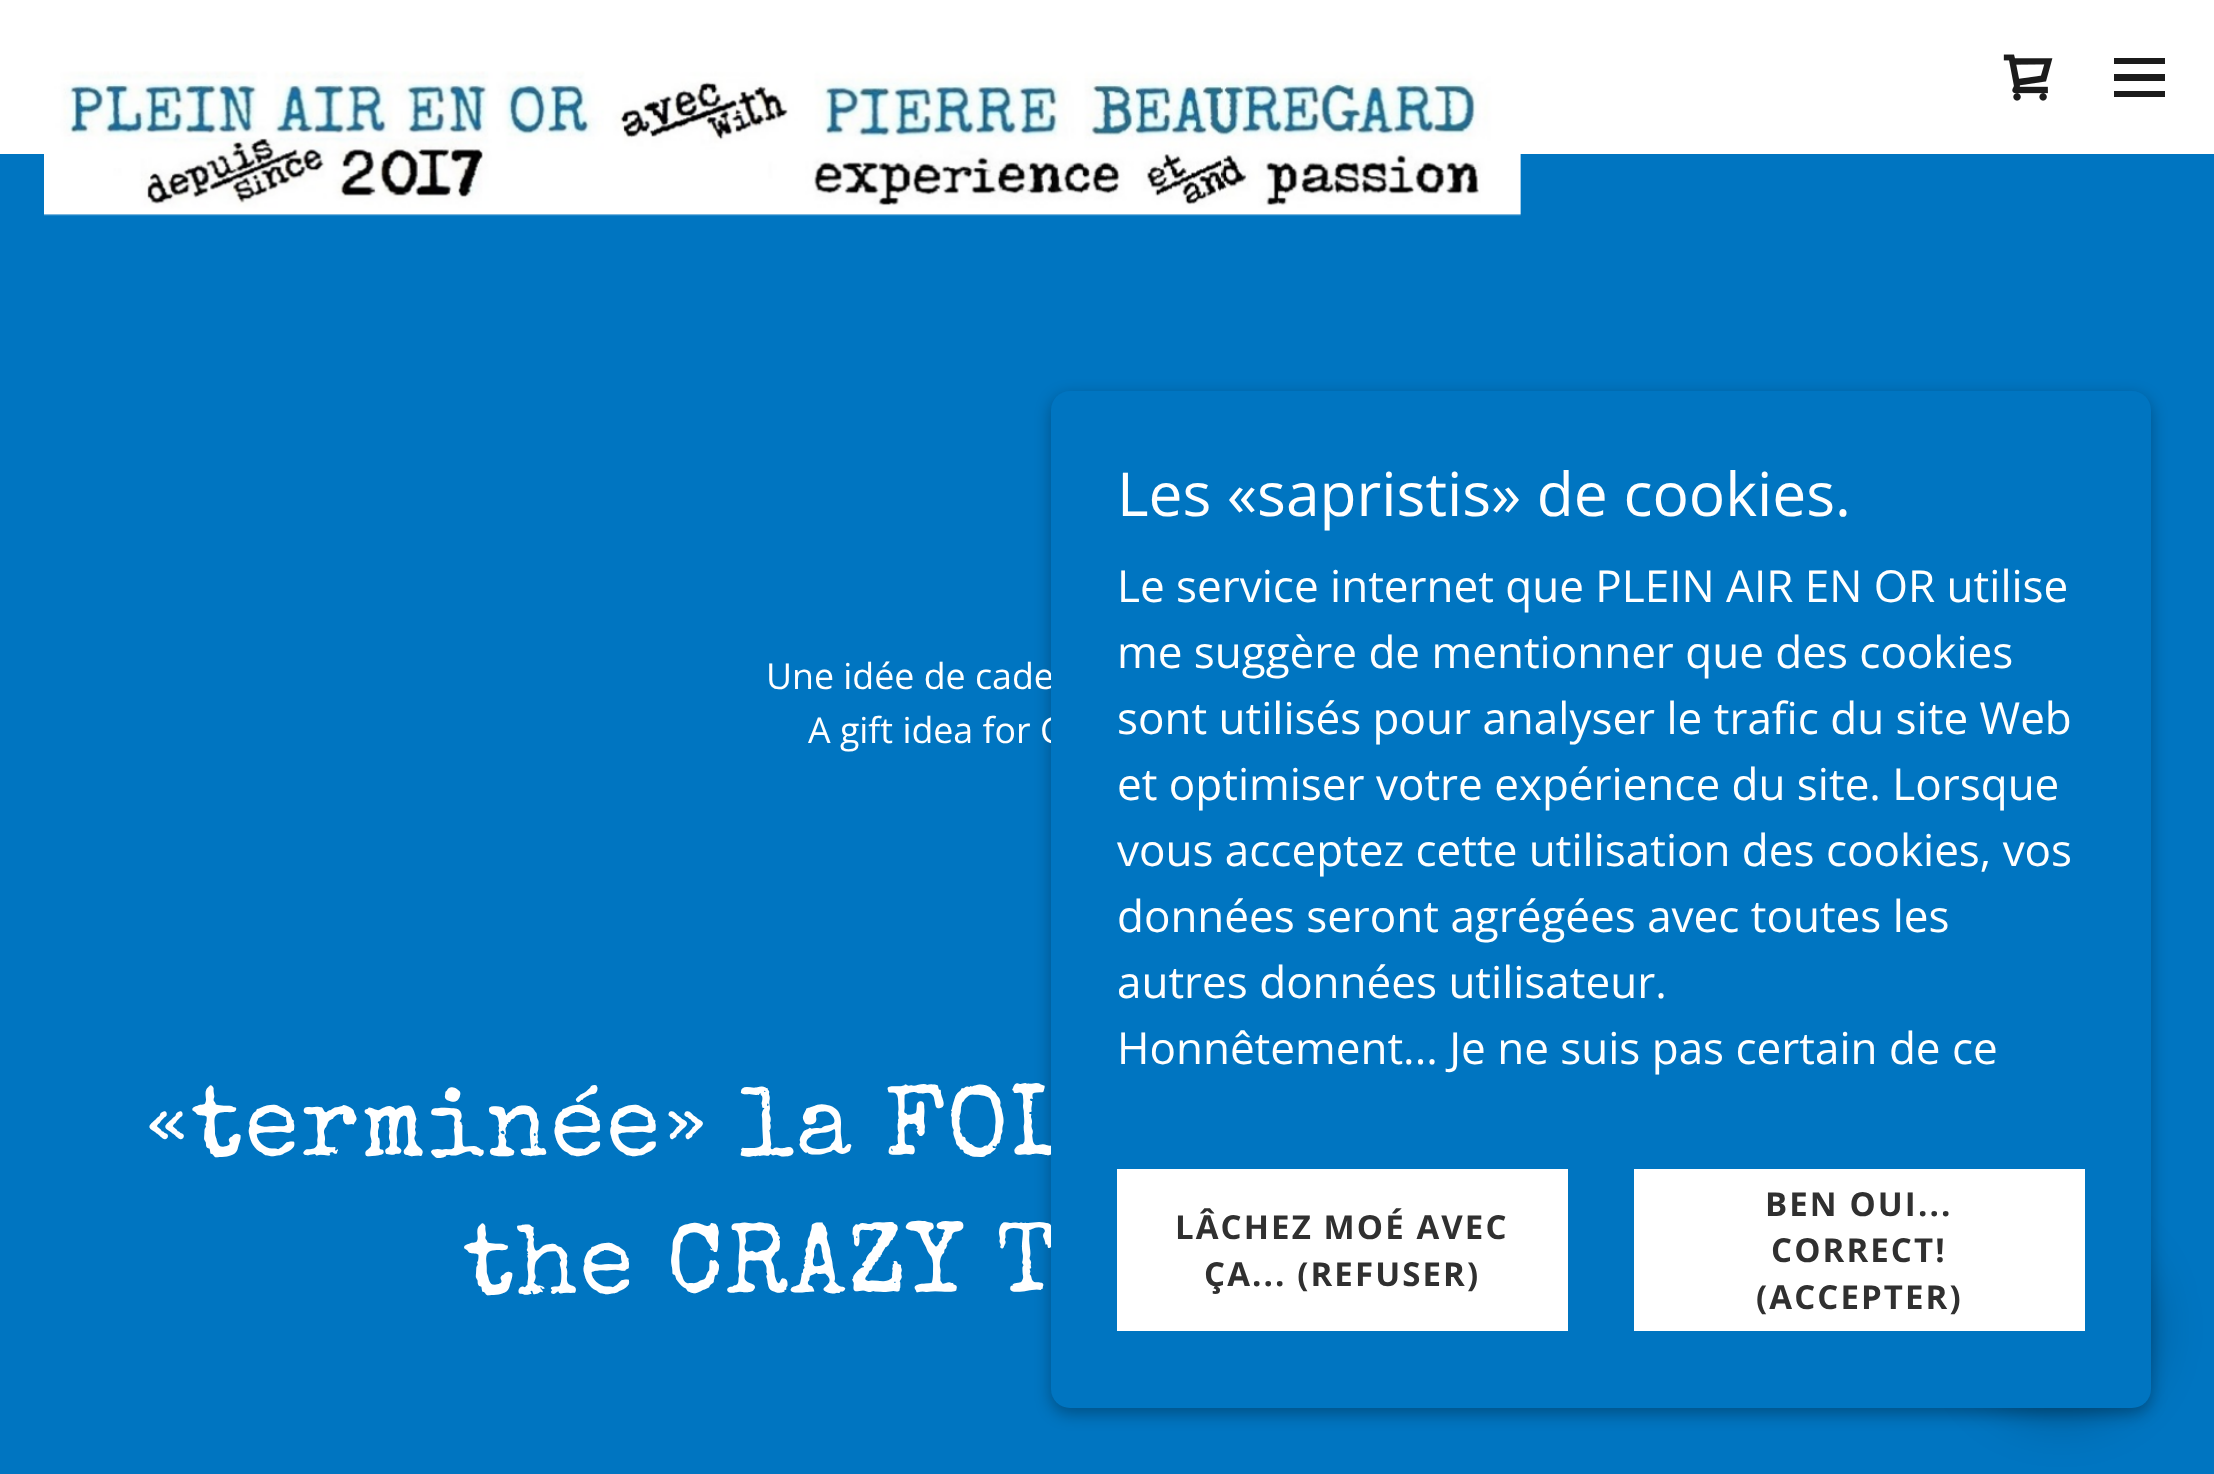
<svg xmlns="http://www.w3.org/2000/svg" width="2214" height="1474">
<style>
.a{font:35.75px Open Sans;fill:#fff}
.b{font:99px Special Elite;letter-spacing:2px;fill:#fff}
.c{font:bold 33px Open Sans;letter-spacing:2.1px;fill:#303030}
.d{font:44px Open Sans;fill:#fff}
.e{font:60.5px Open Sans;fill:#fff}
</style>
<rect width="100%" height="100%" fill="#0075c1"/>
<path fill="#fff" d="M0 0h2214v154H0z"/>
<image href="1.png" x="44" y="71" width="1477" height="145"/>
<image href="2.png" x="2003" y="54" width="50" height="47"/>
<path fill="#1b1b1b" d="M2114 58h51v6H2114z"/>
<path fill="#1b1b1b" d="M2114 74h51v7H2114z"/>
<path fill="#1b1b1b" d="M2114 91h51v6H2114z"/>
<rect fill="#0000004d" filter="blur(8px)" x="1051" y="396" width="1100" height="1018" rx="19"/>
<rect fill="#00000040" filter="blur(25px)" x="1972" y="1238" width="179" height="178" rx="89"/>
<text class="a" x="766" y="689">Une idée de cade</text>
<text class="a" x="808" y="743">A gift idea for C</text>
<text class="b" x="145" y="1154">«terminée» la FOL</text>
<text class="b" x="464" y="1292">the CRAZY T</text>
<rect fill="#0075c1" x="1051" y="391" width="1100" height="1017" rx="19"/>
<path fill="#fff" d="M1634 1169h451v162H1634z"/>
<text class="c" x="1756" y="1309">(ACCEPTER)</text>
<text class="c" x="1771" y="1262">CORRECT!</text>
<text class="c" x="1765" y="1216">BEN OUI...</text>
<path fill="#fff" d="M1117 1169h451v162H1117z"/>
<text class="c" x="1204" y="1286">ÇA... (REFUSER)</text>
<text class="c" x="1175" y="1239">LÂCHEZ MOÉ AVEC</text>
<text class="d" x="1117" y="1064">Honnêtement... Je ne suis pas certain de ce</text>
<text class="d" x="1117" y="998">autres données utilisateur.</text>
<text class="d" x="1117" y="932">données seront agrégées avec toutes les</text>
<text class="d" x="1117" y="866">vous acceptez cette utilisation des cookies, vos</text>
<text class="d" x="1117" y="800">et optimiser votre expérience du site. Lorsque</text>
<text class="d" x="1117" y="734">sont utilisés pour analyser le trafic du site Web</text>
<text class="d" x="1117" y="668">me suggère de mentionner que des cookies</text>
<text class="d" x="1117" y="602">Le service internet que PLEIN AIR EN OR utilise</text>
<text class="e" x="1117" y="516">Les «sapristis» de cookies.</text>
</svg>
